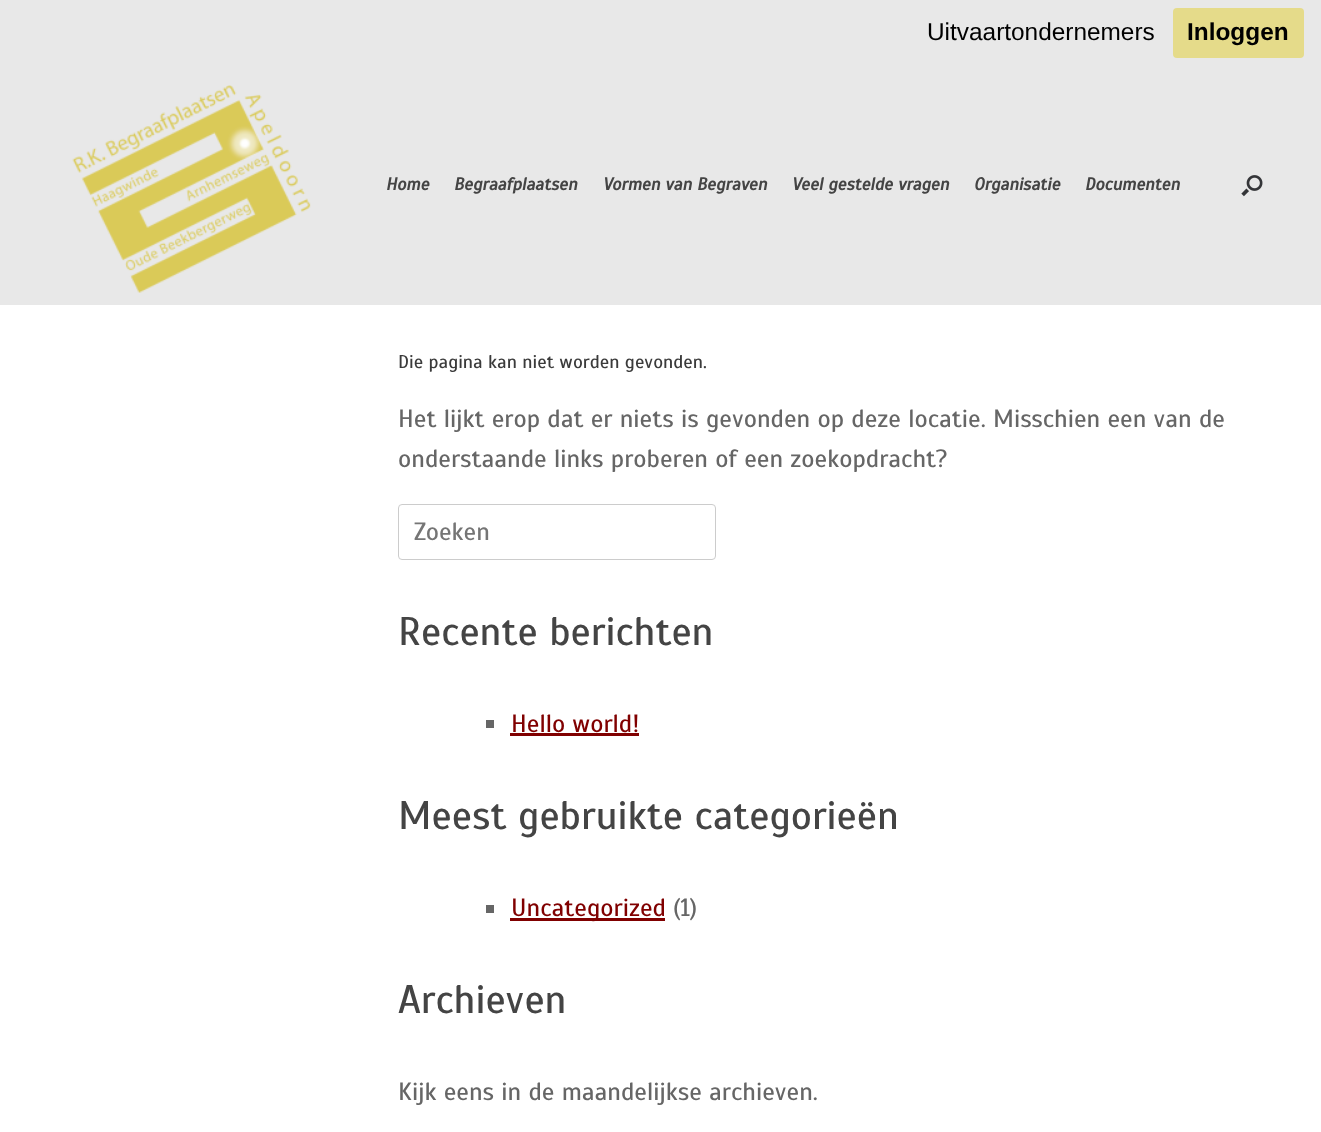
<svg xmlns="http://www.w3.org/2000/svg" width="1321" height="1132">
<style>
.a{font:24.4px Liberation Sans;fill:#000}
.b{font:bold 24.4px Liberation Sans;fill:#000}
.c{font:italic bold 17.5px Scada;fill:#444}
.d{font:18.75px Scada;fill:#3b3b3b}
.e{font:25px Scada;fill:#666}
.f{font:25px Scada;fill:#757575}
.g{font:40px Scada;fill:#444}
.h{font:25px Scada;fill:#800000}
</style>
<rect width="100%" height="100%" fill="#fff"/>
<path fill="#e8e8e8" d="M0 0h1321v305H0z"/>
<rect fill="#e5db8a" x="1173" y="8" width="131" height="50" rx="4"/>
<image href="1.png" x="72" y="85" width="239" height="208"/>
<image href="2.png" x="1241" y="175" width="22" height="22"/>
<rect fill="none" stroke="#ccc" x="398.5" y="504.5" width="317" height="55" rx="3.5"/>
<path fill="#666" d="M486 720h8v8H486z"/>
<path fill="#800000" d="M510 733h129v3H510z"/>
<path fill="#666" d="M486 905h8v8H486z"/>
<path fill="#800000" d="M510 918h155v3H510z"/>
<text class="a" x="927" y="40">Uitvaartondernemers</text>
<text class="b" x="1187" y="40">Inloggen</text>
<text class="c" x="386" y="190">Home</text>
<text class="c" x="454" y="190">Begraafplaatsen</text>
<text class="c" x="603" y="190">Vormen van Begraven</text>
<text class="c" x="792" y="190">Veel gestelde vragen</text>
<text class="c" x="974" y="190">Organisatie</text>
<text class="c" x="1085" y="190">Documenten</text>
<text class="d" x="398" y="368">Die pagina kan niet worden gevonden.</text>
<text class="e" x="398" y="427">Het lijkt erop dat er niets is gevonden op deze locatie. Misschien een van de</text>
<text class="e" x="398" y="467">onderstaande links proberen of een zoekopdracht?</text>
<text class="f" x="414" y="540">Zoeken</text>
<text class="g" x="398" y="645">Recente berichten</text>
<text class="h" x="511" y="732">Hello world!</text>
<text class="g" x="398" y="829">Meest gebruikte categorieën</text>
<text class="h" x="511" y="916">Uncategorized</text>
<text class="e" x="673" y="916">(1)</text>
<text class="g" x="398" y="1013">Archieven</text>
<text class="e" x="398" y="1100">Kijk eens in de maandelijkse archieven.</text>
</svg>
